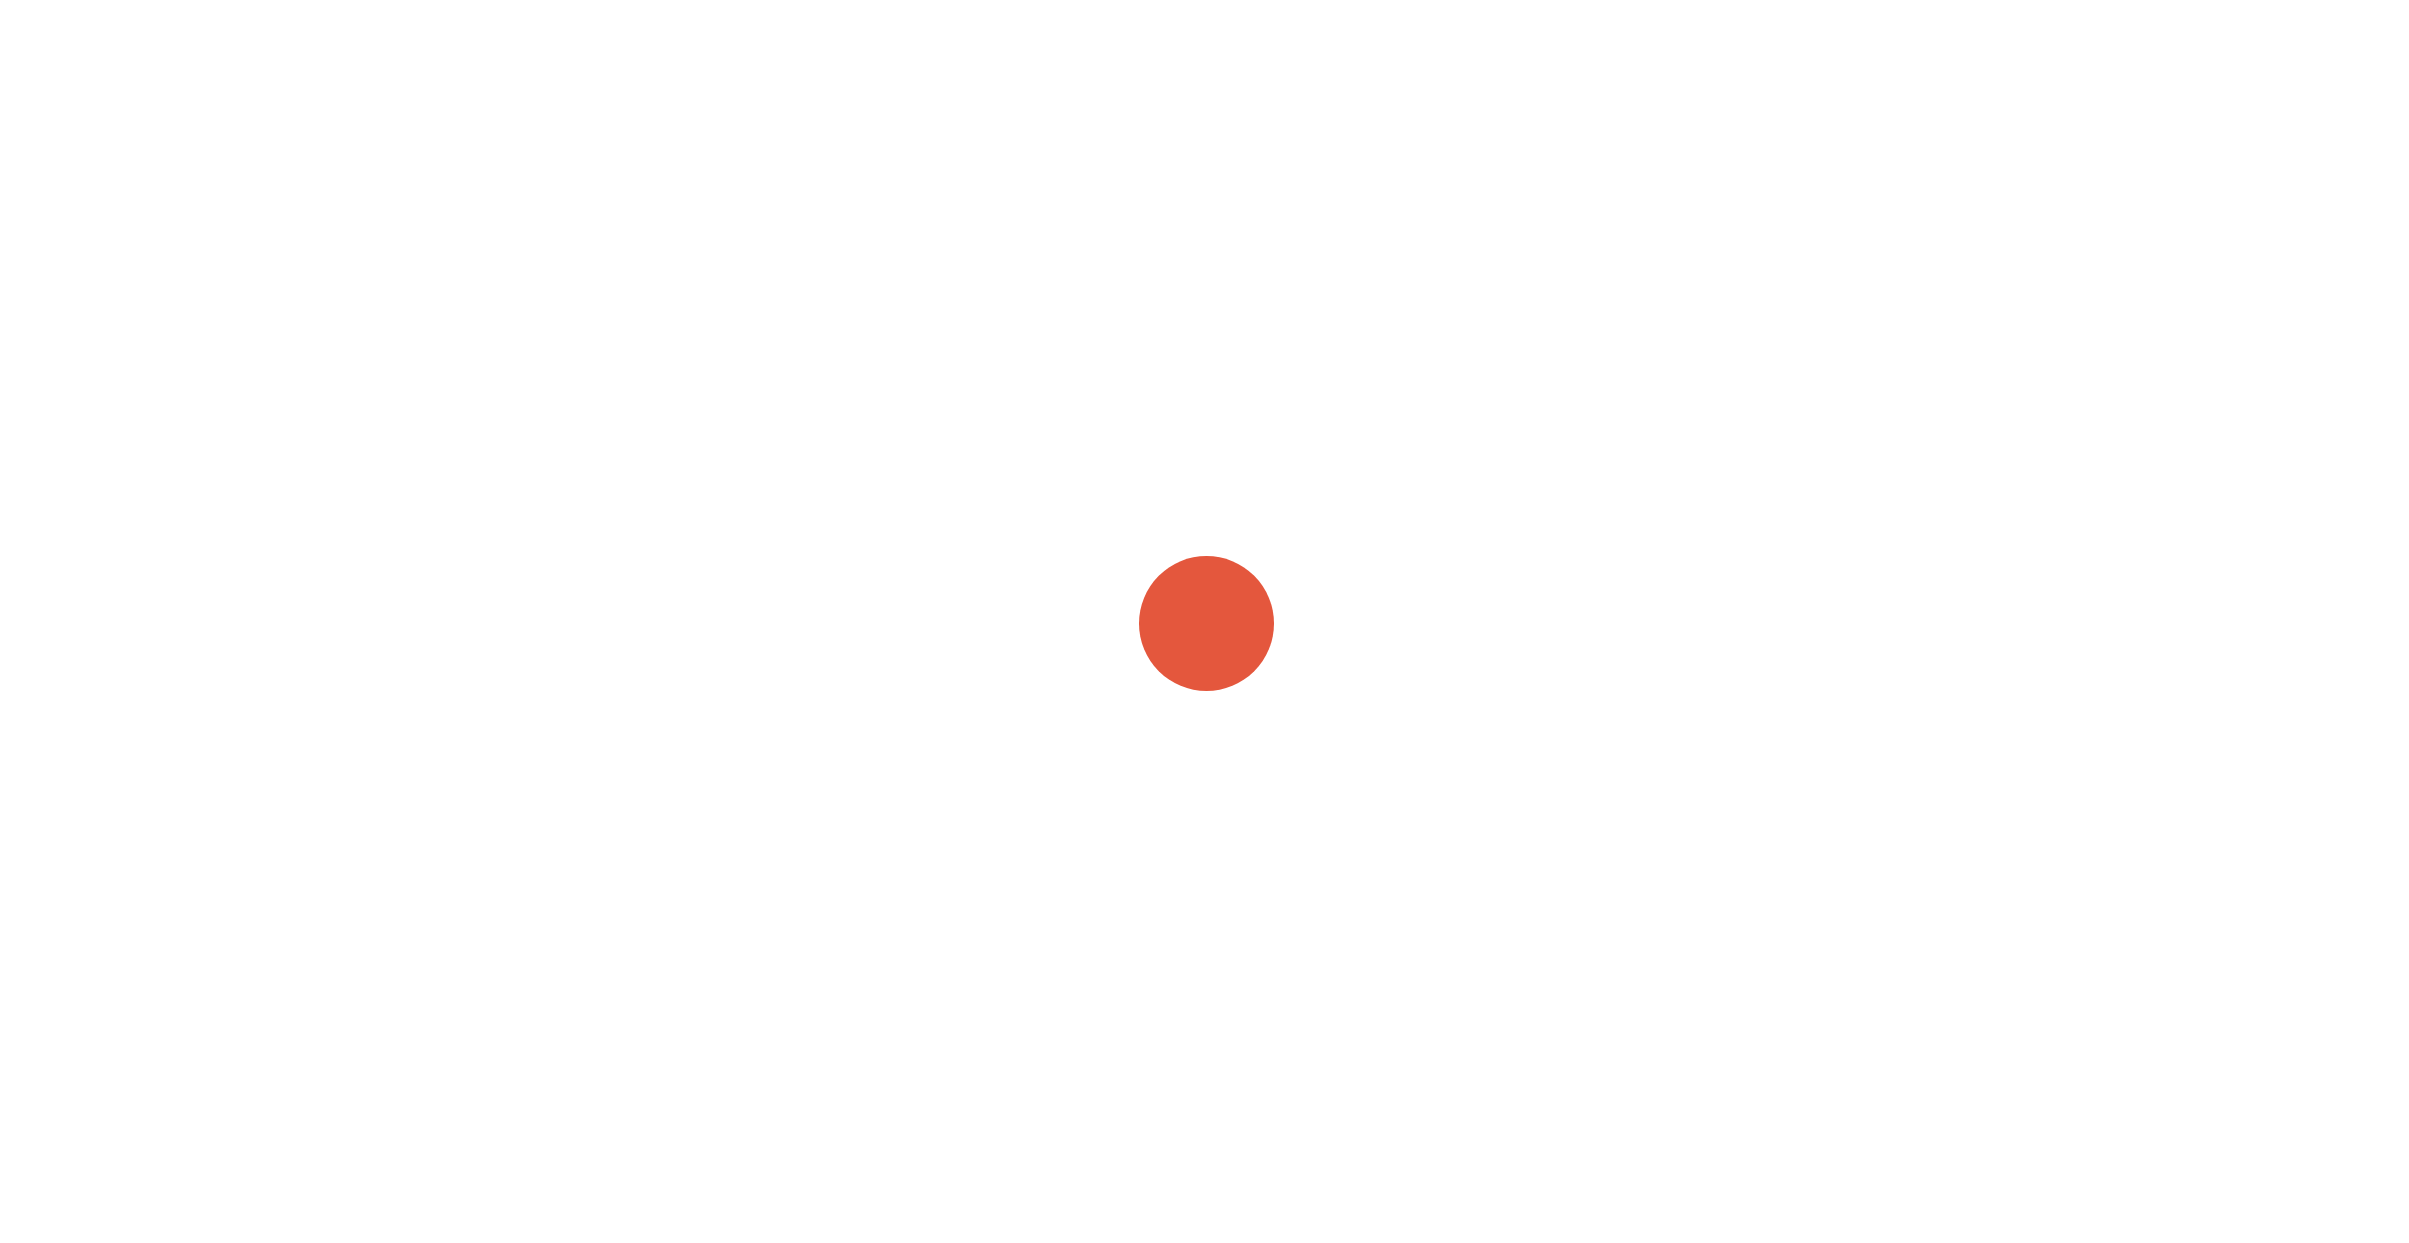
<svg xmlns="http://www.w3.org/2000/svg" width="2409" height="1243">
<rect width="100%" height="100%" fill="#fff"/>
<circle fill="#e4573d" cx="1206.5" cy="623.5" r="67.5"/>
</svg>
